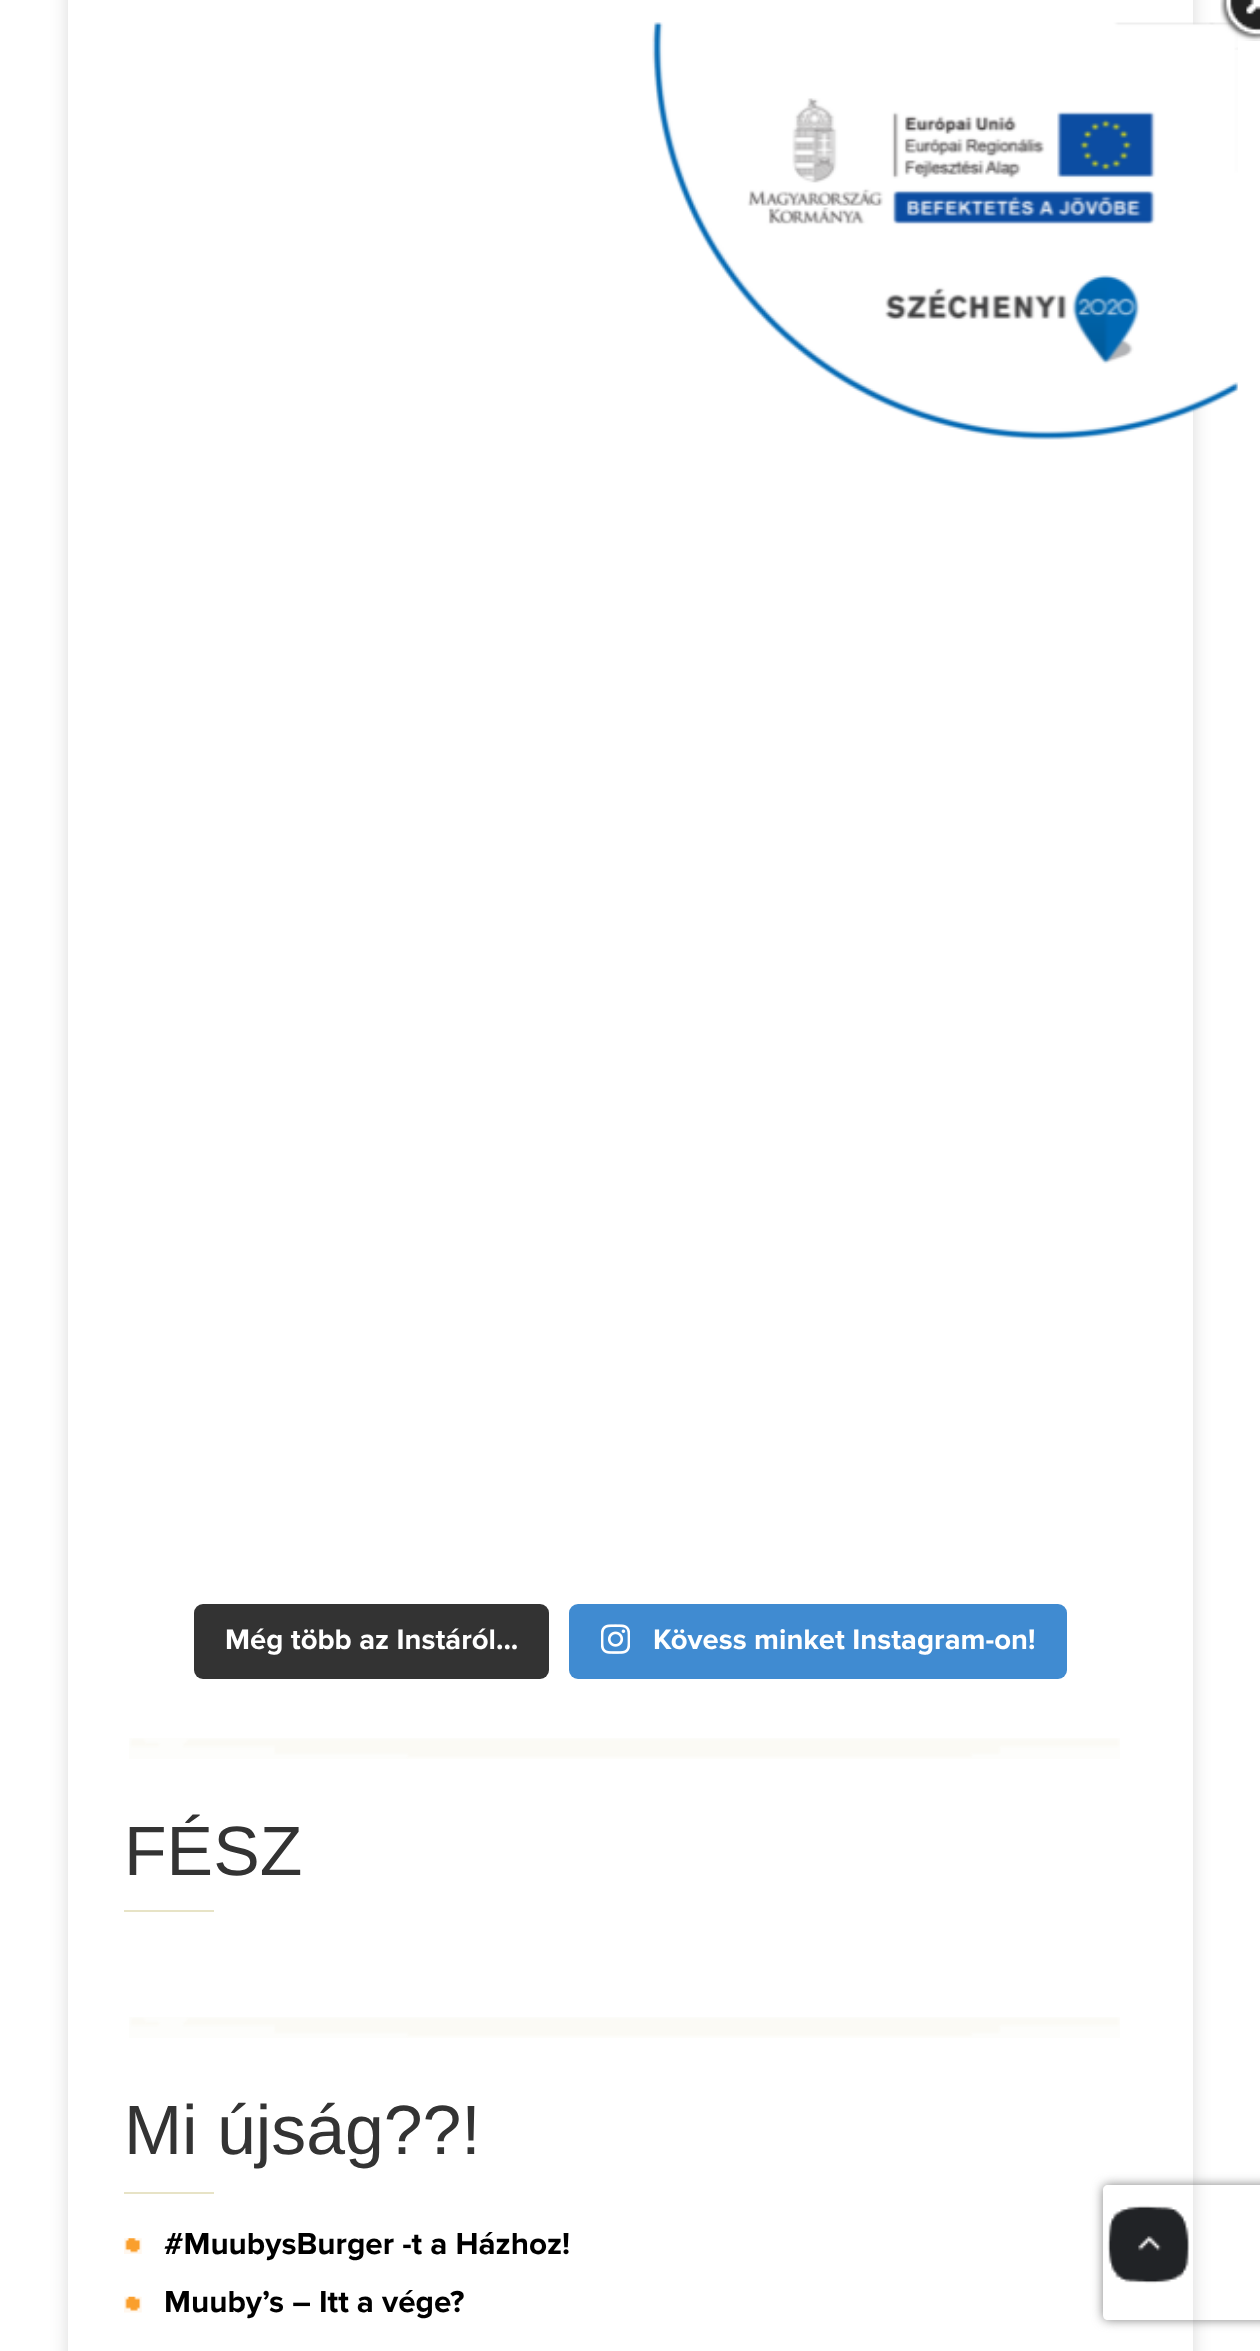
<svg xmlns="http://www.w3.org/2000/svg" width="1260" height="2351">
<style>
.a{font:bold 29.25px Proxima Nova;fill:#fff}
.b{font:69.75px Liberation Sans;fill:#333}
.c{font:bold 31.5px Proxima Nova;fill:#000}
</style>
<defs>
<clipPath id="clip1"><path d="M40 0h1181v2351h-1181zm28-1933h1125v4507h-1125z" clip-rule="evenodd"/></clipPath>
<clipPath id="clip2"><path d="M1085 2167h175v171h-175zm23 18h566c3 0 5 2 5 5v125c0 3-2 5-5 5h-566c-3 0-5-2-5-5v-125c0-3 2-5 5-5z" clip-rule="evenodd"/></clipPath>
</defs>
<rect width="100%" height="100%" fill="#fff"/>
<g clip-path="url(#clip1)">
<path fill="#00000026" filter="blur(9px)" d="M68 -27h1125v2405H68z"/>
</g>
<image href="1.png" x="652" y="22" width="586" height="418"/>
<image href="2.png" x="1220" y="0" width="40" height="41"/>
<image href="3.png" x="129" y="1738" width="991" height="21"/>
<rect fill="#333" x="194" y="1604" width="355" height="75" rx="9"/>
<rect fill="#408bd1" x="569" y="1604" width="498" height="75" rx="9"/>
<image href="4.png" x="601" y="1624" width="29" height="30"/>
<image href="3.png" x="129" y="2017" width="991" height="21"/>
<path fill="#e7e3c6" d="M124 1910h90v2H124z"/>
<path fill="#e7e3c6" d="M124 2192h90v2H124z"/>
<image href="5.png" x="124" y="2238" width="18" height="16"/>
<image href="6.png" x="124" y="2296" width="18" height="17"/>
<g clip-path="url(#clip2)">
<rect fill="#808080" filter="blur(5.5px)" x="1103" y="2185" width="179" height="135" rx="5"/>
</g>
<image href="7.png" x="1107" y="2205" width="83" height="79"/>
<text class="a" x="225" y="1649">Még több az Instáról...</text>
<text class="a" x="653" y="1649">Kövess minket Instagram-on!</text>
<text class="b" x="124" y="1875">FÉSZ</text>
<text class="b" x="124" y="2154">Mi újság??!</text>
<text class="c" x="164" y="2254">#MuubysBurger -t a Házhoz!</text>
<text class="c" x="164" y="2312">Muuby’s – Itt a vége?</text>
</svg>
